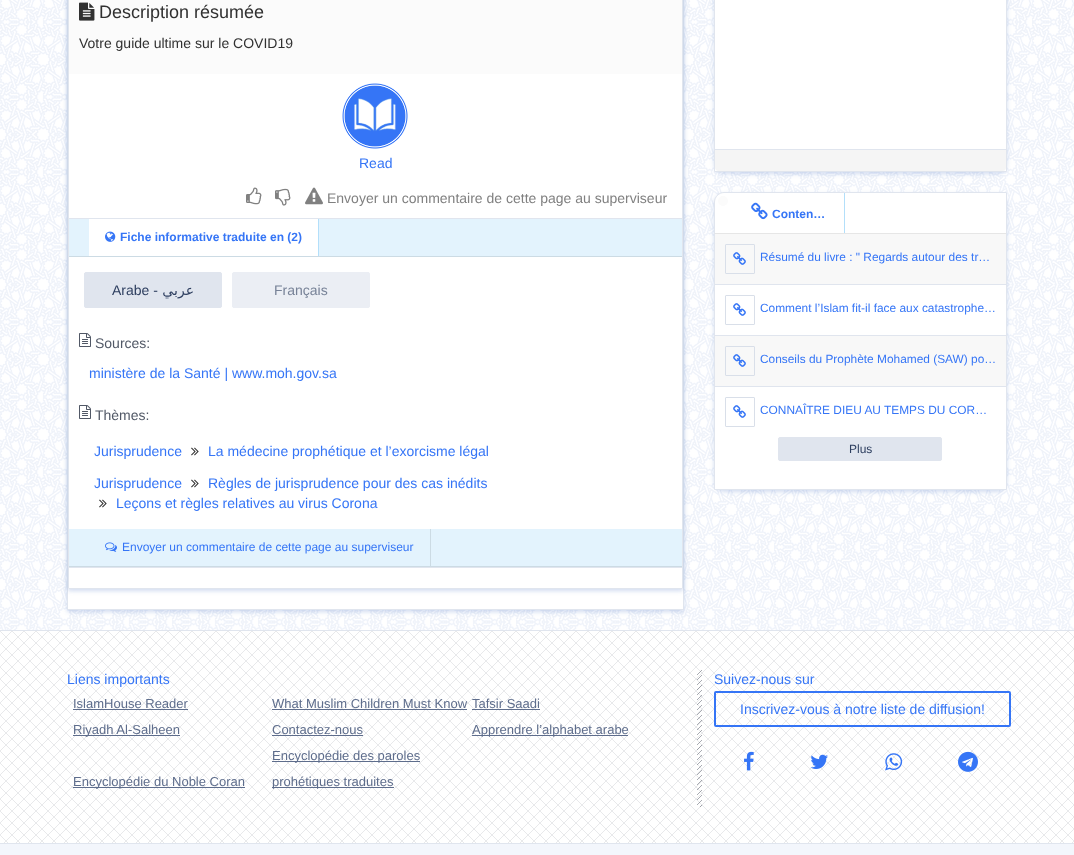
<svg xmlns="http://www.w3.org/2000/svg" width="1074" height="855">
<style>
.a{font:18px Liberation Sans;fill:#313131}
.b{font:14px Liberation Sans;fill:#313131}
.c{font:14px Liberation Sans;fill:#3575f6}
.d{font:14px Liberation Sans;fill:#808080}
.e{font:bold 12px Liberation Sans;fill:#3575f6}
.f{font:14px Liberation Sans;fill:#2d3e5f}
.g{font:14px DejaVu Sans;direction:rtl;fill:#2d3e5f}
.h{font:14px Liberation Sans;fill:#778297}
.i{font:14px Liberation Sans;fill:#515866}
.j{font:12px Liberation Sans;fill:#3575f6}
.k{font:11.9px Liberation Sans;fill:#3575f6}
.l{font:12px Liberation Sans;fill:#2d3e5f}
.m{font:13px Liberation Sans;fill:#5e6d8c}
</style>
<defs>
<clipPath id="clip1"><path d="M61 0h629v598h-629zm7-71h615v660h-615z" clip-rule="evenodd"/></clipPath>
</defs>
<rect width="100%" height="100%" fill="#f3f6fc"/>
<image href="1.png" x="0" y="0" width="1074" height="630"/>
<path fill="#1d4fb333" filter="blur(2px)" d="M67 -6h617v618H67z"/>
<path fill="#fff" d="M68 74h615v535H68z"/>
<path fill="none" stroke="#e0e5ee" d="M67.5 -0.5h616v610H67.5z"/>
<g clip-path="url(#clip1)">
<path fill="#1d4fb333" filter="blur(2px)" d="M68 -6h615v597H68z"/>
</g>
<path fill="none" stroke="#e0e5ee" d="M68.5 -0.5h614v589H68.5z"/>
<path fill="#fbfbfb" d="M69 0h613v74H69z"/>
<image href="2.png" x="79" y="2" width="16" height="19"/>
<image href="3.png" x="342" y="83" width="66" height="66"/>
<image href="4.png" x="246" y="187" width="16" height="18"/>
<image href="5.png" x="275" y="188" width="16" height="18"/>
<image href="6.png" x="305" y="187" width="18" height="18"/>
<path fill="#e3f3fd" d="M69 219h613v37H69z"/>
<path fill="#e0e5ee" d="M69 218h613v1H69z"/>
<path fill="#ccdbe4" d="M69 256h613v1H69z"/>
<path fill="#fff" d="M89 219h229v37H89z"/>
<path fill="#b3dffa" d="M318 219h1v37H318z"/>
<image href="7.png" x="105" y="231" width="11" height="11"/>
<rect fill="#e0e5ee" stroke="#e0e5ee" x="84.5" y="272.5" width="137" height="35" rx="1.5"/>
<rect fill="#ebeef4" stroke="#ebeef4" x="232.5" y="272.5" width="137" height="35" rx="1.5"/>
<image href="8.png" x="79" y="333" width="12" height="14"/>
<image href="8.png" x="79" y="405" width="12" height="14"/>
<image href="9.png" x="191" y="447" width="8" height="9"/>
<image href="9.png" x="191" y="479" width="8" height="9"/>
<image href="9.png" x="99" y="499" width="8" height="9"/>
<path fill="#e3f3fd" d="M69 529h613v37H69z"/>
<path fill="#e0e5ee" d="M69 567h613v1H69z"/>
<path fill="#ccdbe4" d="M69 566h613v1H69z"/>
<path fill="#ccdbe4" d="M430 529h1v37H430z"/>
<image href="10.png" x="105" y="542" width="12" height="10"/>
<rect fill="#1d4fb333" filter="blur(2px)" x="714" y="-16" width="293" height="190" rx="10"/>
<path fill="#fff" stroke="#e0e5ee" d="M714.5 -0.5h292v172H714.5z"/>
<path fill="#f5f5f5" d="M715 149h291v19c0 1.5-1.5 3-3 3h-285c-1.5 0-3-1.5-3-3z"/>
<path fill="#e0e5ee" d="M715 149h291v1H715z"/>
<rect fill="#1d4fb333" filter="blur(2px)" x="714" y="194" width="293" height="298" rx="10"/>
<path fill="#fff" stroke="#e0e5ee" d="M724 192.5h282.5v297h-292v-287.5c0-5 4.5-9.5 9.5-9.5z"/>
<circle fill="#fbfbfb" cx="723" cy="201" r="5"/>
<path fill="#e6e6e6" d="M715 233h291v1H715z"/>
<path fill="#b3dffa" d="M844 193h1v40H844z"/>
<image href="11.png" x="751" y="202" width="17" height="18"/>
<path fill="#f8f8f8" d="M715 234h291v50H715z"/>
<path fill="#e0e5ee" d="M715 284h291v1H715z"/>
<rect fill="none" stroke="#d9dfe9" x="725.5" y="244.5" width="29" height="29" rx="0.5"/>
<image href="12.png" x="733" y="252" width="13" height="13"/>
<path fill="#e0e5ee" d="M715 335h291v1H715z"/>
<rect fill="none" stroke="#d9dfe9" x="725.5" y="295.5" width="29" height="29" rx="0.5"/>
<image href="13.png" x="733" y="303" width="13" height="13"/>
<path fill="#f8f8f8" d="M715 336h291v50H715z"/>
<path fill="#e0e5ee" d="M715 386h291v1H715z"/>
<rect fill="none" stroke="#d9dfe9" x="725.5" y="346.5" width="29" height="29" rx="0.5"/>
<image href="12.png" x="733" y="354" width="13" height="13"/>
<rect fill="none" stroke="#d9dfe9" x="725.5" y="397.5" width="29" height="29" rx="0.5"/>
<image href="13.png" x="733" y="405" width="13" height="13"/>
<rect fill="#e0e5ee" stroke="#e0e5ee" x="778.5" y="437.5" width="163" height="23" rx="1.5"/>
<image href="14.png" x="0" y="631" width="1074" height="212"/>
<path fill="#e0e5ee" d="M0 630h1074v1H0z"/>
<path fill="#5e6d8c" d="M73 709h115v1H73z"/>
<path fill="#5e6d8c" d="M272 709h195v1H272z"/>
<path fill="#5e6d8c" d="M472 709h68v1H472z"/>
<path fill="#5e6d8c" d="M73 735h107v1H73z"/>
<path fill="#5e6d8c" d="M272 735h91v1H272z"/>
<path fill="#5e6d8c" d="M472 735h156v1H472z"/>
<path fill="#5e6d8c" d="M73 787h172v1H73z"/>
<path fill="#5e6d8c" d="M272 761h148v1H272z"/>
<path fill="#5e6d8c" d="M272 787h122v1H272z"/>
<image href="15.png" x="697" y="670" width="5" height="137"/>
<rect fill="none" stroke="#3575f6" stroke-width="2" x="715" y="692" width="295" height="34" rx="1"/>
<image href="16.png" x="744" y="751" width="10" height="20"/>
<image href="17.png" x="810" y="754" width="18" height="15"/>
<image href="18.png" x="885" y="753" width="18" height="18"/>
<image href="19.png" x="958" y="751" width="20" height="21"/>
<path fill="#e0e5ee" d="M0 843h1074v1H0z"/>
<text class="a" x="99" y="18">Description résumée</text>
<text class="b" x="79" y="48">Votre guide ultime sur le COVID19</text>
<text class="c" x="359" y="168">Read</text>
<text class="d" x="327" y="203">Envoyer un commentaire de cette page au superviseur</text>
<text class="e" x="120" y="241">Fiche informative traduite en (2)</text>
<text class="f" x="112" y="295">Arabe -</text>
<text class="g" x="194" y="295">عربي</text>
<text class="h" x="274" y="295">Français</text>
<text class="i" x="95" y="348">Sources:</text>
<text class="c" x="89" y="378">ministère de la Santé | www.moh.gov.sa</text>
<text class="i" x="95" y="420">Thèmes:</text>
<text class="c" x="94" y="456">Jurisprudence</text>
<text class="c" x="208" y="456">La médecine prophétique et l’exorcisme légal</text>
<text class="c" x="94" y="488">Jurisprudence</text>
<text class="c" x="208" y="488">Règles de jurisprudence pour des cas inédits</text>
<text class="c" x="116" y="508">Leçons et règles relatives au virus Corona</text>
<text class="j" x="122" y="551">Envoyer un commentaire de cette page au superviseur</text>
<text class="e" x="772" y="218">Conten…</text>
<text class="k" x="760" y="261">Résumé du livre : " Regards autour des tr…</text>
<text class="k" x="760" y="312">Comment l’Islam fit-il face aux catastrophe…</text>
<text class="k" x="760" y="363">Conseils du Prophète Mohamed (SAW) po…</text>
<text class="k" x="760" y="414">CONNAÎTRE DIEU AU TEMPS DU COR…</text>
<text class="l" x="849" y="453">Plus</text>
<text class="c" x="67" y="684">Liens importants</text>
<text class="m" x="73" y="708">IslamHouse Reader</text>
<text class="m" x="272" y="708">What Muslim Children Must Know</text>
<text class="m" x="472" y="708">Tafsir Saadi</text>
<text class="m" x="73" y="734">Riyadh Al-Salheen</text>
<text class="m" x="272" y="734">Contactez-nous</text>
<text class="m" x="472" y="734">Apprendre l’alphabet arabe</text>
<text class="m" x="73" y="786">Encyclopédie du Noble Coran</text>
<text class="m" x="272" y="760">Encyclopédie des paroles</text>
<text class="m" x="272" y="786">prohétiques traduites</text>
<text class="c" x="714" y="684">Suivez-nous sur</text>
<text class="c" x="740" y="714">Inscrivez-vous à notre liste de diffusion!</text>
</svg>
